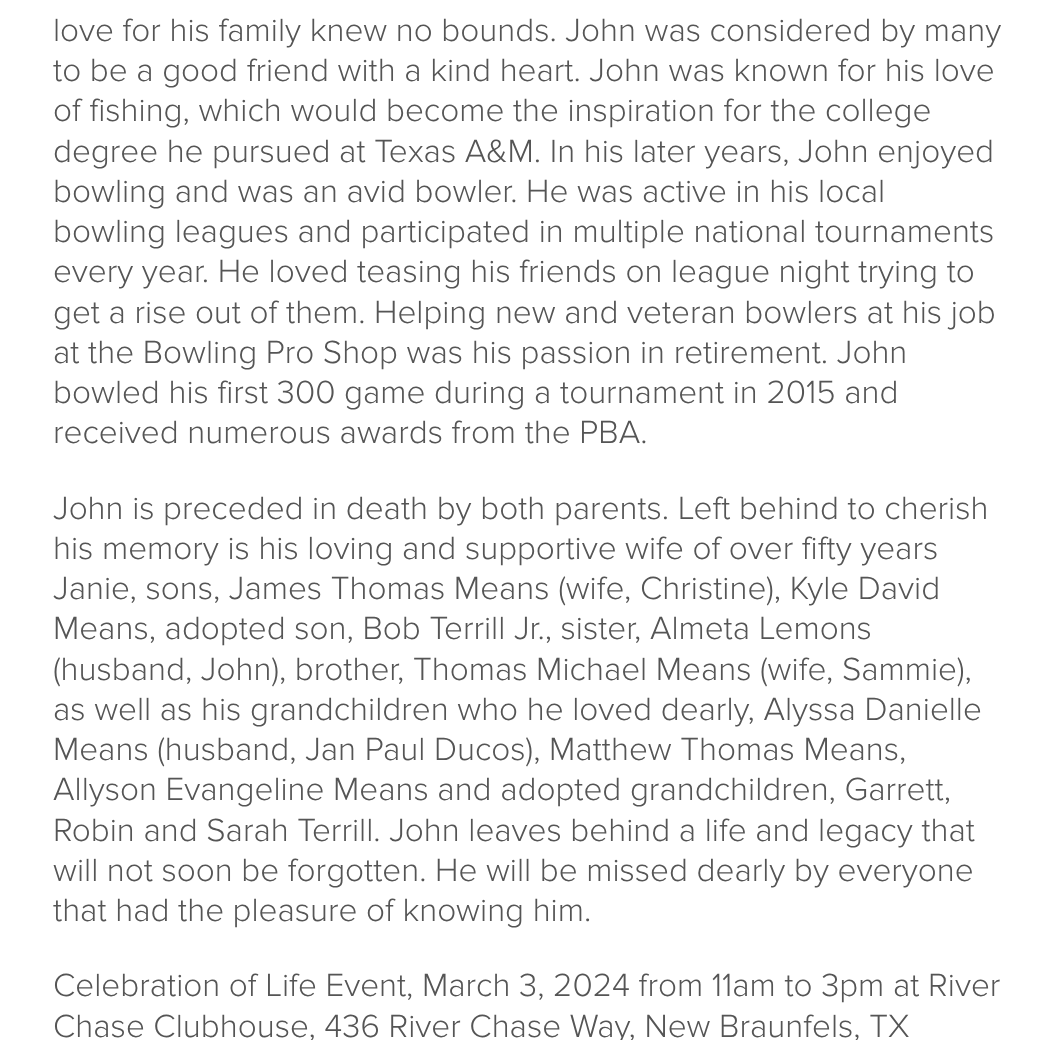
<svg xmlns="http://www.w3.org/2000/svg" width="1057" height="1040">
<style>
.a{font:300 33.25px Proxima Nova;fill:#555}
</style>
<rect width="100%" height="100%" fill="#fff"/>
<text class="a" x="53" y="41">love for his family knew no bounds. John was considered by many</text>
<text class="a" x="53" y="81">to be a good friend with a kind heart. John was known for his love</text>
<text class="a" x="53" y="121">of fishing, which would become the inspiration for the college</text>
<text class="a" x="53" y="162">degree he pursued at Texas A&amp;M. In his later years, John enjoyed</text>
<text class="a" x="53" y="202">bowling and was an avid bowler. He was active in his local</text>
<text class="a" x="53" y="242">bowling leagues and participated in multiple national tournaments</text>
<text class="a" x="53" y="282">every year. He loved teasing his friends on league night trying to</text>
<text class="a" x="53" y="323">get a rise out of them. Helping new and veteran bowlers at his job</text>
<text class="a" x="53" y="363">at the Bowling Pro Shop was his passion in retirement. John</text>
<text class="a" x="53" y="403">bowled his first 300 game during a tournament in 2015 and</text>
<text class="a" x="53" y="443">received numerous awards from the PBA.</text>
<text class="a" x="53" y="519">John is preceded in death by both parents. Left behind to cherish</text>
<text class="a" x="53" y="559">his memory is his loving and supportive wife of over fifty years</text>
<text class="a" x="53" y="599">Janie, sons, James Thomas Means (wife, Christine), Kyle David</text>
<text class="a" x="53" y="639">Means, adopted son, Bob Terrill Jr., sister, Almeta Lemons</text>
<text class="a" x="53" y="680">(husband, John), brother, Thomas Michael Means (wife, Sammie),</text>
<text class="a" x="53" y="720">as well as his grandchildren who he loved dearly, Alyssa Danielle</text>
<text class="a" x="53" y="760">Means (husband, Jan Paul Ducos), Matthew Thomas Means,</text>
<text class="a" x="53" y="800">Allyson Evangeline Means and adopted grandchildren, Garrett,</text>
<text class="a" x="53" y="841">Robin and Sarah Terrill. John leaves behind a life and legacy that</text>
<text class="a" x="53" y="881">will not soon be forgotten. He will be missed dearly by everyone</text>
<text class="a" x="53" y="921">that had the pleasure of knowing him.</text>
<text class="a" x="53" y="996">Celebration of Life Event, March 3, 2024 from 11am to 3pm at River</text>
<text class="a" x="53" y="1037">Chase Clubhouse, 436 River Chase Way, New Braunfels, TX</text>
</svg>
